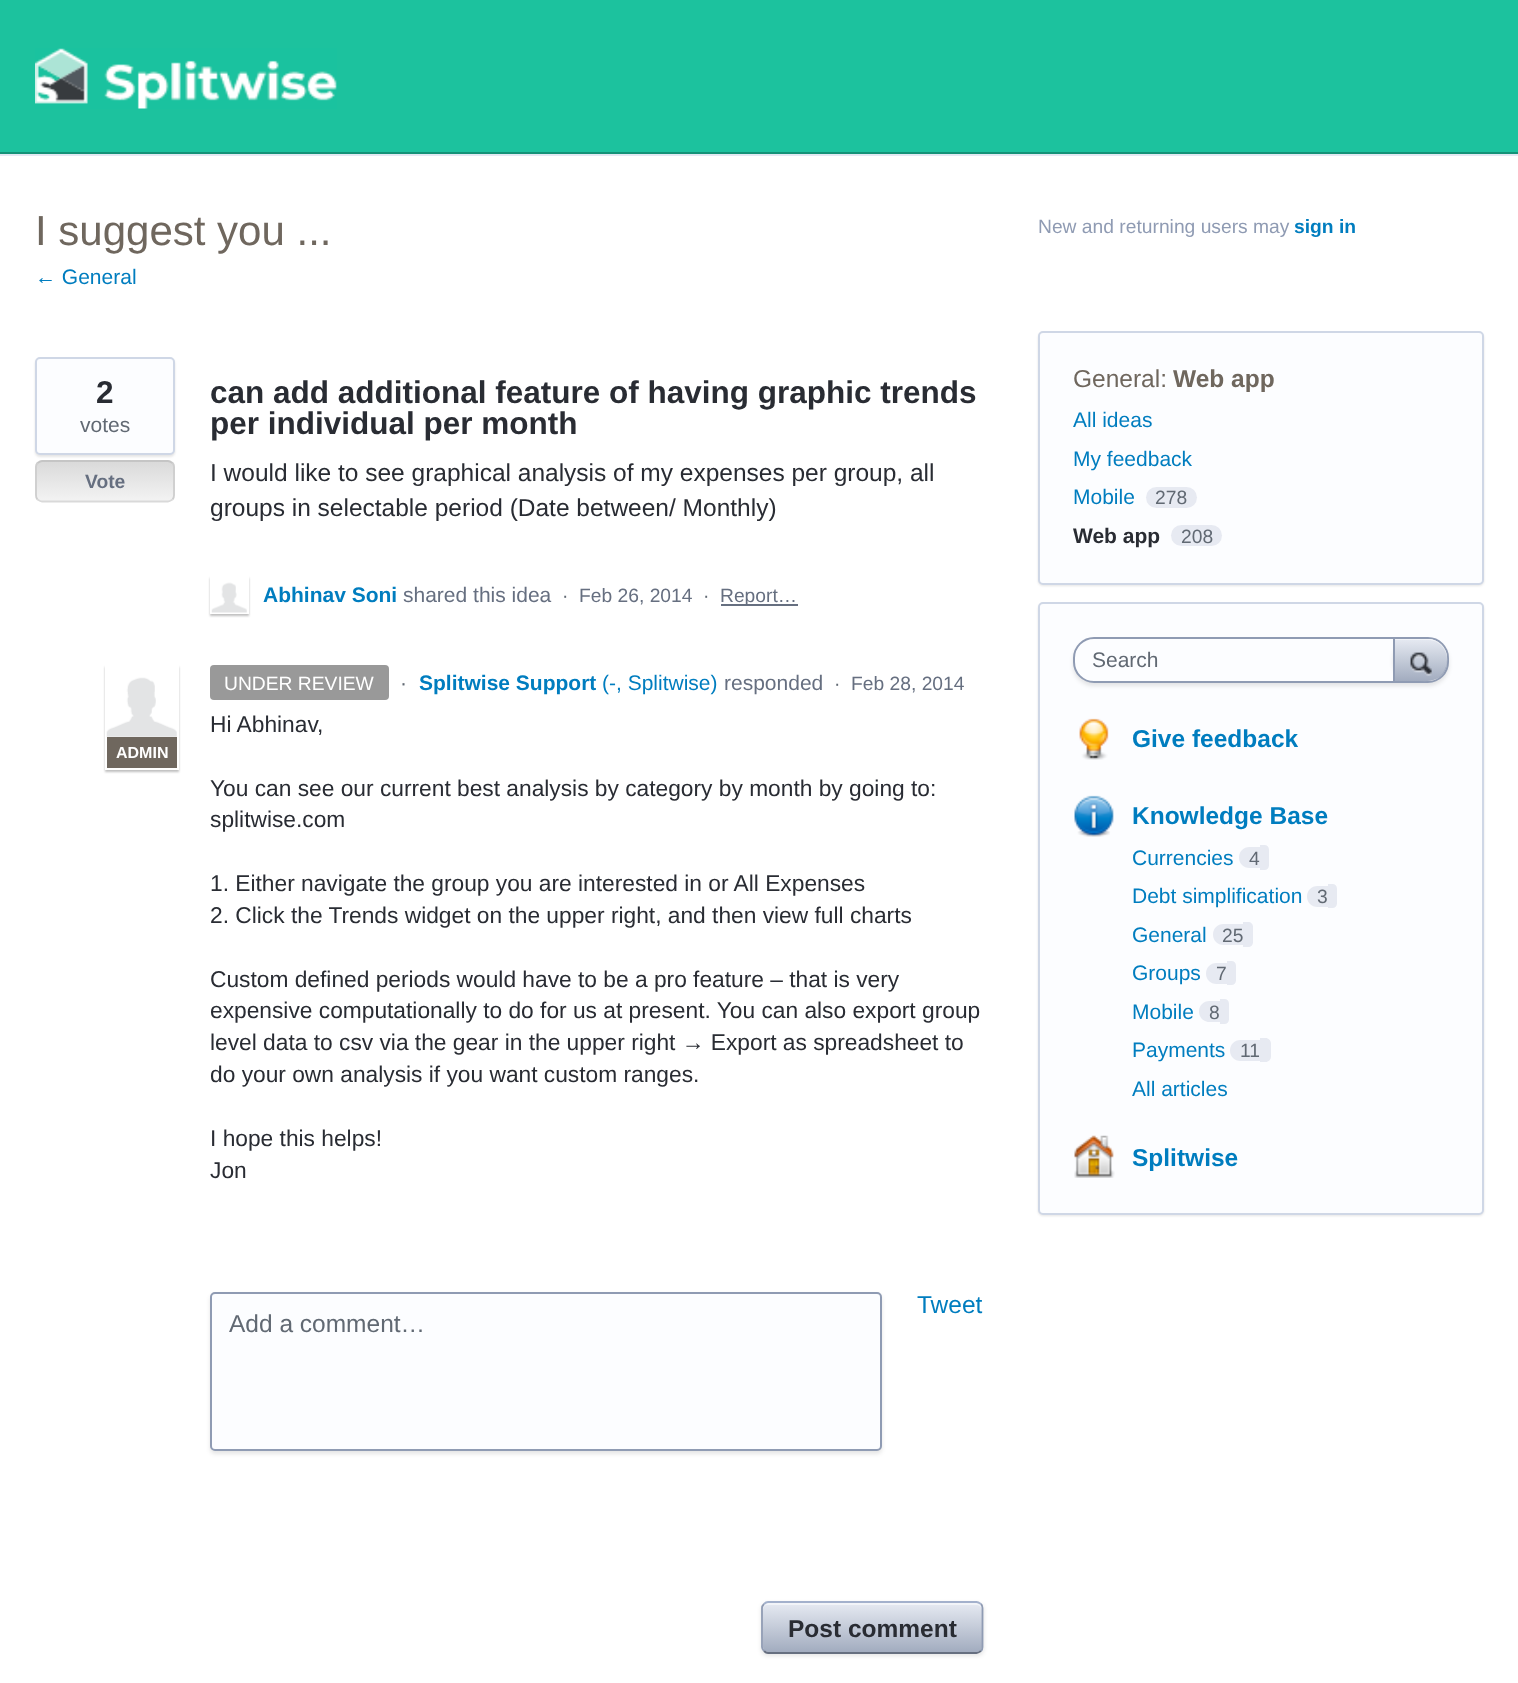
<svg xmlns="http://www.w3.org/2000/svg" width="1518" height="1683">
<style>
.a{font:42px Liberation Sans;fill:#6f675e}
.b{font:21px Liberation Sans;fill:#007dbf}
.c{font:bold 31.5px Liberation Sans;fill:#292c33}
.d{font:21px Liberation Sans;fill:#616973}
.e{font:bold 19.25px Liberation Sans;fill:#666f80}
.f{font:24.5px Liberation Sans;fill:#292c33}
.g{font:bold 21px Liberation Sans;fill:#007dbf}
.h{font:21px Liberation Sans;fill:#666f80}
.i{font:19.25px Liberation Sans;fill:#616973}
.j{font:19.25px Liberation Sans;fill:#666f80}
.k{font:bold 16px Liberation Sans;fill:#fff}
.l{font:19.25px Liberation Sans;fill:#fff}
.m{font:22.75px Liberation Sans;fill:#292c33}
.n{font:24.5px Liberation Sans;fill:#007dbf}
.o{font:24.5px Liberation Sans;fill:#616973}
.p{font:bold 24.5px Liberation Sans;fill:#292c33}
.q{font:19.25px Liberation Sans;fill:#8f9bb3}
.r{font:bold 19.25px Liberation Sans;fill:#007dbf}
.s{font:24.5px Liberation Sans;fill:#6f675e}
.t{font:bold 24.5px Liberation Sans;fill:#6f675e}
.u{font:bold 21px Liberation Sans;fill:#292c33}
.v{font:bold 24.5px Liberation Sans;fill:#007dbf}
</style>
<defs>
<clipPath id="clip1"><rect x="35" y="460" width="140" height="42" rx="7"/></clipPath>
<linearGradient id="g1" gradientUnits="userSpaceOnUse" x1="37" y1="424" x2="37" y2="462"><stop offset="0" stop-color="#dadada"/><stop offset="1" stop-color="#f3f3f3"/></linearGradient>
<linearGradient id="g2" gradientUnits="userSpaceOnUse" x1="37" y1="462" x2="37" y2="501"><stop offset="0" stop-color="#dadada"/><stop offset="1" stop-color="#f3f3f3"/></linearGradient>
<clipPath id="clip2"><path d="M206 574h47v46h-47zm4 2h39v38h-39z" clip-rule="evenodd"/></clipPath>
<clipPath id="clip3"><path d="M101 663h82v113h-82zm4 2h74v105h-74z" clip-rule="evenodd"/></clipPath>
<linearGradient id="g3" gradientUnits="userSpaceOnUse" x1="763" y1="1603" x2="763" y2="1652"><stop offset="0" stop-color="#e6eaf2"/><stop offset="1" stop-color="#a2acbf"/></linearGradient>
<clipPath id="clip4"><rect x="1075" y="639" width="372" height="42" rx="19"/></clipPath>
<linearGradient id="g4" gradientUnits="userSpaceOnUse" x1="1395" y1="639" x2="1395" y2="681"><stop offset="0" stop-color="#e6eaf2"/><stop offset="1" stop-color="#a2acbf"/></linearGradient>
</defs>
<rect width="100%" height="100%" fill="#fff"/>
<path fill="#1cc29e" d="M0 0h1518v152H0z"/>
<path fill="#159277" d="M0 152h1518v2H0z"/>
<image href="1.png" x="35" y="48" width="302" height="61"/>
<path fill="#e3e8f2" d="M0 154h1518v2H0z"/>
<rect fill="#0000001a" filter="blur(1px)" x="35" y="359" width="140" height="98" rx="5"/>
<rect fill="#fcfdff" stroke="#cfd7e6" stroke-width="2" x="36" y="358" width="138" height="96" rx="4"/>
<g clip-path="url(#clip1)">
<path fill="url(#g1)" d="M35 460h140v2H35z"/>
<path fill="url(#g2)" d="M35 462h140v39H35z"/>
</g>
<path fill="none" stroke="#c5c5c5" stroke-width="1.8" d="M37.5 463c1.5-1 3-2 4.5-2h126c1.5 0 3 1 4.5 2"/>
<path fill="none" stroke="#cecece" stroke-width="1.8" d="M172.5 463c1 1 1.5 2.5 1.5 4v28c0 2-.5 3.5-1.5 4.5"/>
<path fill="none" stroke="#d9d9d9" stroke-width="1.8" d="M172.5 499.5c-1.5 1-3 2-4.5 2h-126c-1.5 0-3-1-4.5-2"/>
<path fill="none" stroke="#cecece" stroke-width="1.8" d="M37.5 499.5c-1-1-1.5-2.5-1.5-4.5v-28c0-1.5 .5-3 1.5-4"/>
<g clip-path="url(#clip2)">
<path fill="#00000040" filter="blur(1px)" d="M210 578h39v38H210z"/>
</g>
<path fill="none" stroke="#fff" stroke-width="2" d="M211 577h37v36H211z"/>
<image href="2.png" x="211" y="582" width="36" height="31"/>
<path fill="#666f80" d="M721 604h77v2H721z"/>
<g clip-path="url(#clip3)">
<path fill="#00000040" filter="blur(1px)" d="M105 667h74v105H105z"/>
</g>
<path fill="none" stroke="#fff" stroke-width="2" d="M106 666h72v103H106z"/>
<image href="3.png" x="106" y="677" width="71" height="60"/>
<path fill="#6f675e" d="M107 737h70v31H107z"/>
<rect fill="#999" x="210" y="665" width="179" height="35" rx="4"/>
<rect fill="#0000001a" filter="blur(2px)" x="210" y="1295" width="672" height="159" rx="5"/>
<rect fill="#fcfdff" stroke="#8f9bb3" stroke-width="2" x="211" y="1293" width="670" height="157" rx="4"/>
<rect fill="#0000001a" filter="blur(2px)" x="761" y="1603" width="223" height="53" rx="7"/>
<rect fill="url(#g3)" x="763" y="1603" width="219" height="49" rx="5"/>
<path fill="#ffffff80" d="M768 1605h208c3 0 6 2 6 5v-2c0-3-2-5-5-5h-209c-3 0-5 2-5 5v2c0-3 2-5 5-5z"/>
<path fill="none" stroke="#a3b1cc" stroke-width="1.8" d="M764 1604c1-1 2.5-2 4-2h208.5c1.5 0 3 1 4.5 2"/>
<path fill="none" stroke="#8f9bb3" stroke-width="1.8" d="M981 1604c1 1 1.5 2.5 1.5 4v39c0 1.5-.5 3-1.5 4"/>
<path fill="none" stroke="#666f80" stroke-width="1.8" d="M981 1651c-1.5 1-3 2-4.5 2h-208.5c-1.5 0-3-1-4-2"/>
<path fill="none" stroke="#8f9bb3" stroke-width="1.8" d="M764 1651c-1-1-2-2.5-2-4v-39c0-1.5 1-3 2-4"/>
<rect fill="#0000001a" filter="blur(1px)" x="1038" y="333" width="446" height="253" rx="5"/>
<rect fill="#fcfdff" stroke="#cfd7e6" stroke-width="2" x="1039" y="332" width="444" height="252" rx="4"/>
<rect fill="#e7eaf2" x="1146" y="487" width="51" height="21" rx="10.5"/>
<rect fill="#e7eaf2" x="1171" y="525" width="51" height="21" rx="10.5"/>
<rect fill="#0000001a" filter="blur(1px)" x="1038" y="604" width="446" height="612" rx="5"/>
<rect fill="#fcfdff" stroke="#cfd7e6" stroke-width="2" x="1039" y="603" width="444" height="611" rx="4"/>
<rect fill="#0000001a" filter="blur(2px)" x="1073" y="641" width="376" height="45" rx="21"/>
<rect fill="#fcfdff" stroke="#8f9bb3" stroke-width="2" x="1074" y="638" width="374" height="44" rx="20"/>
<g clip-path="url(#clip4)">
<rect fill="#0000001a" filter="blur(2px)" x="1393" y="639" width="56" height="44" rx="21"/>
</g>
<path fill="url(#g4)" d="M1395 639v42h22c6 0 13 1 19-2c18-8 14-40-8-40z"/>
<path fill="#ffffff80" d="M1395 640v41v-42h33c10 0 19 9 19 19v2c0-11-8-20-19-20z"/>
<path fill="#8f9bb3" d="M1431 681c9.5-2 16-11 16-21v2c0 9.5-7 17.5-16 19z"/>
<path fill="#8f9bb3" d="M1393 639h2v42H1393z"/>
<image href="4.png" x="1410" y="652" width="22" height="24"/>
<image href="5.png" x="1079" y="718" width="30" height="42"/>
<image href="6.png" x="1074" y="795" width="40" height="42"/>
<path fill="#e7eaf2" d="M1249.5 847h10.5v21h-10.5c-6 0-10.5-4.5-10.5-10.5c0-6 4.5-10.5 10.5-10.5z"/>
<path fill="#e7eaf2" d="M1260 845h4.5c2.5 0 4.5 2 4.5 4.5v16c0 2.5-2 4.5-4.5 4.5h-4.5z"/>
<path fill="#e7eaf2" d="M1317.5 886h10.5v21h-10.5c-6 0-10.5-4.5-10.5-10.5c0-6 4.5-10.5 10.5-10.5z"/>
<path fill="#e7eaf2" d="M1328 884h4.5c2.5 0 4.5 2 4.5 4.5v15c0 2.5-2 4.5-4.5 4.5h-4.5z"/>
<path fill="#e7eaf2" d="M1223.5 924h19.5v21h-19.5c-6 0-10.5-4.5-10.5-10.5c0-6 4.5-10.5 10.5-10.5z"/>
<path fill="#e7eaf2" d="M1243 922h5c3 0 5 2 5 5v15c0 3-2 5-5 5h-5z"/>
<path fill="#e7eaf2" d="M1216.5 963h10.5v21h-10.5c-6 0-10.5-4.5-10.5-10.5c0-6 4.5-10.5 10.5-10.5z"/>
<path fill="#e7eaf2" d="M1227 961h4.5c2.5 0 4.5 2 4.5 4.5v15c0 2.5-2 4.5-4.5 4.5h-4.5z"/>
<path fill="#e7eaf2" d="M1209.5 1001h10.5v21h-10.5c-6 0-10.5-4.5-10.5-10.5c0-6 4.5-10.5 10.5-10.5z"/>
<path fill="#e7eaf2" d="M1220 999h4.5c2.5 0 4.5 2 4.5 4.5v16c0 2.5-2 4.5-4.5 4.5h-4.5z"/>
<path fill="#e7eaf2" d="M1240.5 1040h19.5v21h-19.5c-6 0-10.5-4.5-10.5-10.5c0-6 4.5-10.5 10.5-10.5z"/>
<path fill="#e7eaf2" d="M1260 1038h5.5c3 0 5.5 2.5 5.5 5.5v13c0 3-2.5 5.5-5.5 5.5h-5.5z"/>
<image href="7.png" x="1074" y="1135" width="41" height="43"/>
<text class="a" x="35" y="245">I suggest you ...</text>
<text class="b" x="35" y="284">← General</text>
<text class="c" x="96" y="403">2</text>
<text class="d" x="80" y="432">votes</text>
<text class="e" x="85" y="488">Vote</text>
<text class="c" x="210" y="403">can add additional feature of having graphic trends</text>
<text class="c" x="210" y="434">per individual per month</text>
<text class="f" x="210" y="481">I would like to see graphical analysis of my expenses per group, all</text>
<text class="f" x="210" y="516">groups in selectable period (Date between/ Monthly)</text>
<text class="g" x="263" y="602">Abhinav Soni</text>
<text class="h" x="403" y="602">shared this idea</text>
<text class="i" x="562" y="602">·</text>
<text class="j" x="579" y="602">Feb 26, 2014</text>
<text class="i" x="703" y="602">·</text>
<text class="j" x="720" y="602">Report…</text>
<text class="g" x="419" y="690">Splitwise Support</text>
<text class="b" x="602" y="690">(-, Splitwise)</text>
<text class="k" x="116" y="758">ADMIN</text>
<text class="h" x="724" y="690">responded</text>
<text class="l" x="224" y="690">UNDER REVIEW</text>
<text class="d" x="400" y="690">·</text>
<text class="i" x="834" y="690">·</text>
<text class="j" x="851" y="690">Feb 28, 2014</text>
<text class="m" x="210" y="732">Hi Abhinav,</text>
<text class="m" x="210" y="796">You can see our current best analysis by category by month by going to:</text>
<text class="m" x="210" y="827">splitwise.com</text>
<text class="m" x="210" y="891">1. Either navigate the group you are interested in or All Expenses</text>
<text class="m" x="210" y="923">2. Click the Trends widget on the upper right, and then view full charts</text>
<text class="m" x="210" y="987">Custom defined periods would have to be a pro feature – that is very</text>
<text class="m" x="210" y="1018">expensive computationally to do for us at present. You can also export group</text>
<text class="m" x="210" y="1050">level data to csv via the gear in the upper right → Export as spreadsheet to</text>
<text class="m" x="210" y="1082">do your own analysis if you want custom ranges.</text>
<text class="m" x="210" y="1146">I hope this helps!</text>
<text class="m" x="210" y="1178">Jon</text>
<text class="n" x="917" y="1313">Tweet</text>
<text class="o" x="229" y="1332">Add a comment…</text>
<text class="p" x="788" y="1637">Post comment</text>
<text class="q" x="1038" y="233">New and returning users may</text>
<text class="r" x="1294" y="233">sign in</text>
<text class="s" x="1073" y="387">General:</text>
<text class="t" x="1173" y="387">Web app</text>
<text class="b" x="1073" y="427">All ideas</text>
<text class="b" x="1073" y="466">My feedback</text>
<text class="b" x="1073" y="504">Mobile</text>
<text class="i" x="1155" y="504">278</text>
<text class="u" x="1073" y="543">Web app</text>
<text class="i" x="1181" y="543">208</text>
<text class="d" x="1092" y="667">Search</text>
<text class="v" x="1132" y="747">Give feedback</text>
<text class="v" x="1132" y="824">Knowledge Base</text>
<text class="b" x="1132" y="865">Currencies</text>
<text class="i" x="1249" y="865">4</text>
<text class="b" x="1132" y="903">Debt simplification</text>
<text class="i" x="1317" y="903">3</text>
<text class="b" x="1132" y="942">General</text>
<text class="i" x="1222" y="942">25</text>
<text class="b" x="1132" y="980">Groups</text>
<text class="i" x="1216" y="980">7</text>
<text class="b" x="1132" y="1019">Mobile</text>
<text class="i" x="1209" y="1019">8</text>
<text class="b" x="1132" y="1057">Payments</text>
<text class="i" x="1240" y="1057">11</text>
<text class="b" x="1132" y="1096">All articles</text>
<text class="v" x="1132" y="1166">Splitwise</text>
</svg>
